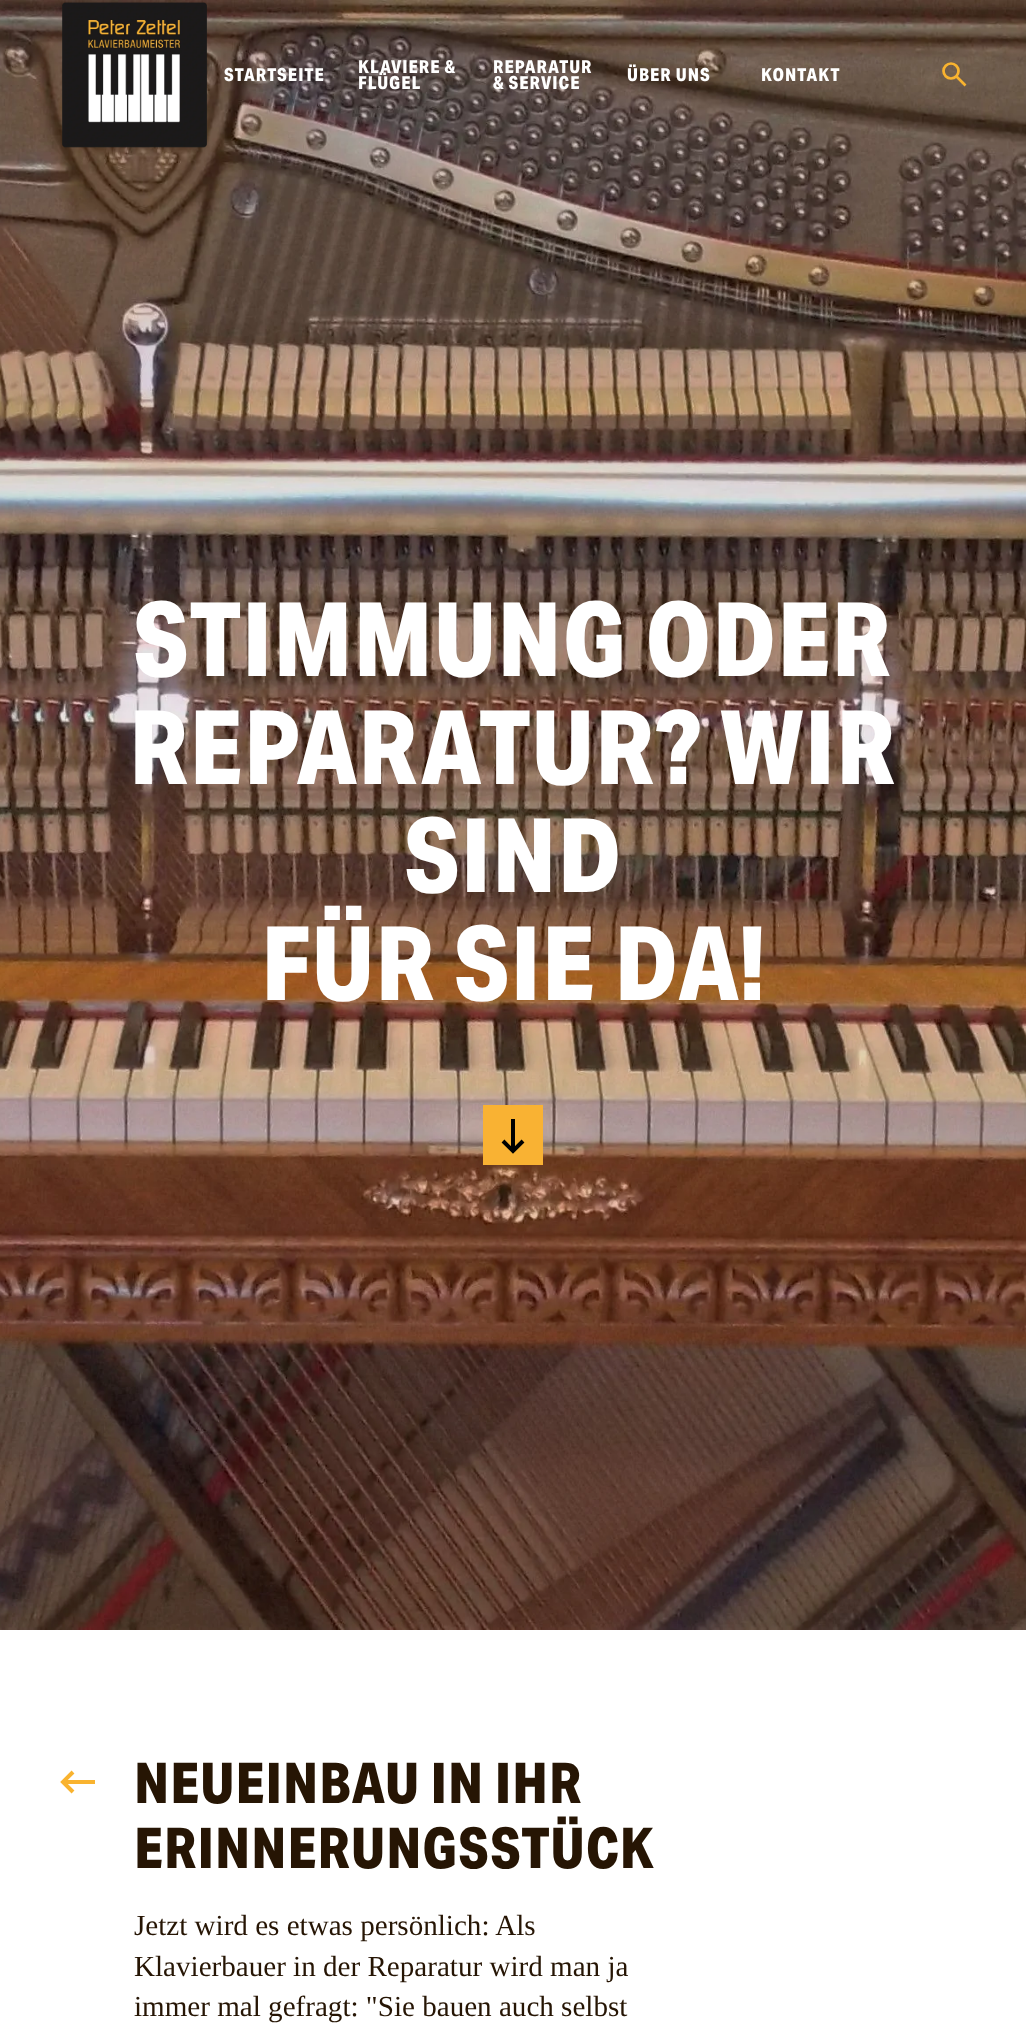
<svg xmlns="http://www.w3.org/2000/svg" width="1026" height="2037">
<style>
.a{font:bold 18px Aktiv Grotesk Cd;letter-spacing:1px;fill:#fff}
.b{font:bold 103px Aktiv Grotesk Cd;letter-spacing:1px;fill:#fff}
.c{font:bold 56.25px Aktiv Grotesk Cd;letter-spacing:1px;fill:#261504}
.d{font:29.1px Liberation Serif;fill:#261504}
</style>
<rect width="100%" height="100%" fill="#fff"/>
<image href="2.png" x="0" y="0" width="1026" height="1630"/>
<image href="1.png" x="62" y="2" width="145" height="146"/>
<circle fill="none" stroke="#f9b32f" stroke-width="2.7" cx="951" cy="71" r="7.5"/>
<path fill="none" stroke="#f9b32f" stroke-width="2.7" d="M956.5 76.5l9 9"/>
<path fill="#f9b233" d="M483 1105h60v60H483z"/>
<path fill="#000" d="M511 1119h4v32H511z"/>
<path fill="none" stroke="#000" stroke-width="4" d="M503 1141l10 10l10-10"/>
<path fill="#f9b32f" d="M63 1780h32v4H63z"/>
<path fill="none" stroke="#f9b32f" stroke-width="4" d="M73 1772l-10 10l10 10"/>
<text class="a" x="224" y="81">STARTSEITE</text>
<text class="a" x="358" y="73">KLAVIERE &amp;</text>
<text class="a" x="358" y="89">FLÜGEL</text>
<text class="a" x="493" y="73">REPARATUR</text>
<text class="a" x="493" y="89">&amp; SERVICE</text>
<text class="a" x="627" y="81">ÜBER UNS</text>
<text class="a" x="761" y="81">KONTAKT</text>
<text class="b" x="133" y="676">STIMMUNG ODER</text>
<text class="b" x="129" y="784">REPARATUR? WIR</text>
<text class="b" x="404" y="892">SIND</text>
<text class="b" x="261" y="1000">FÜR SIE DA!</text>
<text class="c" x="134" y="1803">NEUEINBAU IN IHR</text>
<text class="c" x="134" y="1868">ERINNERUNGSSTÜCK</text>
<text class="d" x="134" y="1935">Jetzt wird es etwas persönlich: Als</text>
<text class="d" x="134" y="1976">Klavierbauer in der Reparatur wird man ja</text>
<text class="d" x="134" y="2016">immer mal gefragt: "Sie bauen auch selbst</text>
</svg>
